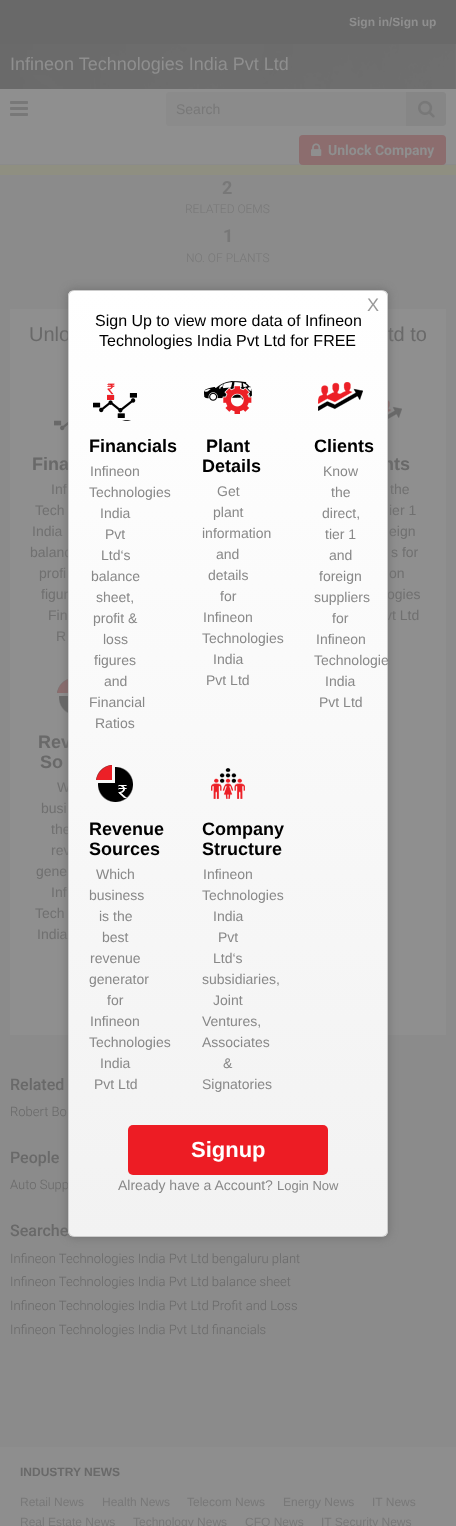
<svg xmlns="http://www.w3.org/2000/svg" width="456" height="1526">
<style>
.a{font:bold 12px Liberation Sans;fill:#8f8f8f}
.b{font:18px Liberation Sans;fill:#8f8f8f}
.c{font:14px Liberation Sans;fill:#787878}
.d{font:bold 14px Roboto;fill:#8f8f8f}
.e{font:bold 18px Roboto;fill:#787878}
.f{font:300 12px Roboto;fill:#787878}
.g{font:20px Liberation Sans;fill:#696969}
.h{font:bold 18px Liberation Sans;fill:#696969}
.i{font:14px Liberation Sans;fill:#707070}
.j{font:500 16px Roboto;fill:#696969}
.k{font:300 13px Roboto;fill:#696969}
.l{font:18px Liberation Sans;fill:#999}
.m{font:16px Liberation Sans;fill:#000}
.n{font:bold 18px Liberation Sans;fill:#000}
.o{font:14px Liberation Sans;fill:#888}
.p{font:bold 22px Liberation Sans;fill:#fff}
.q{font:13px Liberation Sans;fill:#888}
.r{font:bold 12px Liberation Sans;fill:#696969}
.s{font:12px Liberation Sans;fill:#787878}
</style>
<defs>
<clipPath id="clip1"><rect x="68" y="290" width="320" height="947" rx="6"/></clipPath>
<linearGradient id="g1" gradientUnits="userSpaceOnUse" x1="228" y1="291" x2="228" y2="1236"><stop offset="0" stop-color="#fff"/><stop offset="1" stop-color="#f2f2f2"/></linearGradient>
</defs>
<rect width="100%" height="100%" fill="#8b8b8b"/>
<path fill="#696969" d="M0 0h456v44H0z"/>
<path fill="#8f8f8f" d="M0 44h456v120H0z"/>
<image href="1.png" x="0" y="44" width="456" height="45"/>
<image href="2.png" x="10" y="101" width="18" height="15"/>
<path fill="#8b8b8b" d="M169 92h244v34h-244c-1.5 0-3-1.5-3-3v-28c0-1.5 1.5-3 3-3z"/>
<path fill="#868686" d="M406 92h37c1.5 0 3 1.5 3 3v28c0 1.5-1.5 3-3 3h-37z"/>
<image href="3.png" x="418" y="100" width="17" height="18"/>
<rect fill="#8c6d6e" x="299" y="135" width="147" height="30" rx="4"/>
<image href="4.png" x="311" y="143" width="11" height="13"/>
<path fill="#8f8f81" d="M0 165h456v10H0z"/>
<path fill="#8f8f8f" d="M10 309h436v726H10z"/>
<image href="5.png" x="54" y="420" width="14" height="11"/>
<image href="6.png" x="388" y="400" width="14" height="19"/>
<image href="7.png" x="57" y="679" width="11" height="34"/>
<rect fill="#5c5c5c80" filter="blur(4px)" x="67" y="289" width="322" height="949" rx="7"/>
<path fill="#8e8e8e" d="M0 1447h456v79H0z"/>
<text class="a" x="349" y="26">Sign in/Sign up</text>
<text class="b" x="10" y="70">Infineon Technologies India Pvt Ltd</text>
<text class="c" x="176" y="114">Search</text>
<text class="d" x="328" y="155">Unlock Company</text>
<text class="e" x="222" y="194">2</text>
<text class="f" x="185" y="213">RELATED OEMS</text>
<text class="e" x="223" y="242">1</text>
<text class="f" x="186" y="262">NO. OF PLANTS</text>
<text class="g" x="29" y="341">Unlo</text>
<text class="g" x="388" y="341">td to</text>
<text class="h" x="32" y="470">Fina</text>
<text class="i" x="51" y="494">Inf</text>
<text class="i" x="35" y="515">Tech</text>
<text class="i" x="32" y="536">India</text>
<text class="i" x="30" y="557">balanc</text>
<text class="i" x="39" y="578">profi</text>
<text class="i" x="41" y="599">figur</text>
<text class="i" x="48" y="620">Fin</text>
<text class="i" x="56" y="641">R</text>
<text class="h" x="383" y="470">nts</text>
<text class="i" x="390" y="494">the</text>
<text class="i" x="389" y="515">ier 1</text>
<text class="i" x="389" y="536">eign</text>
<text class="i" x="391" y="557">s for</text>
<text class="i" x="389" y="578">on</text>
<text class="i" x="387" y="599">ogies</text>
<text class="i" x="385" y="620">vt Ltd</text>
<text class="h" x="38" y="748">Rev</text>
<text class="h" x="40" y="768">So</text>
<text class="i" x="57" y="792">W</text>
<text class="i" x="41" y="813">busi</text>
<text class="i" x="51" y="834">the</text>
<text class="i" x="51" y="855">rev</text>
<text class="i" x="36" y="876">gene</text>
<text class="i" x="51" y="897">Inf</text>
<text class="i" x="35" y="918">Tech</text>
<text class="i" x="37" y="939">India</text>
<text class="j" x="10" y="1090">Related</text>
<text class="k" x="10" y="1116">Robert Bo</text>
<text class="j" x="10" y="1163">People</text>
<text class="k" x="10" y="1189">Auto Supp</text>
<text class="j" x="10" y="1236">Searche</text>
<text class="k" x="10" y="1263">Infineon Technologies India Pvt Ltd bengaluru plant</text>
<text class="k" x="10" y="1286">Infineon Technologies India Pvt Ltd balance sheet</text>
<text class="k" x="10" y="1310">Infineon Technologies India Pvt Ltd Profit and Loss</text>
<text class="k" x="10" y="1334">Infineon Technologies India Pvt Ltd financials</text>
<g clip-path="url(#clip1)">
<path fill="url(#g1)" d="M68 291h320v945H68z"/>
</g>
<rect fill="none" stroke="#ccc" x="68.5" y="290.5" width="319" height="946" rx="5.5"/>
<text class="l" x="367" y="311">X</text>
<text class="m" x="95" y="326">Sign Up to view more data of Infineon</text>
<text class="m" x="99" y="346">Technologies India Pvt Ltd for FREE</text>
<image href="8.png" x="93" y="383" width="44" height="38"/>
<text class="n" x="89" y="452">Financials</text>
<text class="o" x="90" y="476">Infineon</text>
<text class="o" x="89" y="497">Technologies</text>
<text class="o" x="100" y="518">India</text>
<text class="o" x="105" y="539">Pvt</text>
<text class="o" x="101" y="560">Ltd‘s</text>
<text class="o" x="91" y="581">balance</text>
<text class="o" x="96" y="602">sheet,</text>
<text class="o" x="93" y="623">profit &amp;</text>
<text class="o" x="103" y="644">loss</text>
<text class="o" x="94" y="665">figures</text>
<text class="o" x="104" y="686">and</text>
<text class="o" x="89" y="707">Financial</text>
<text class="o" x="95" y="728">Ratios</text>
<image href="9.png" x="204" y="381" width="48" height="33"/>
<text class="n" x="206" y="452">Plant</text>
<text class="n" x="202" y="472">Details</text>
<text class="o" x="217" y="496">Get</text>
<text class="o" x="213" y="517">plant</text>
<text class="o" x="202" y="538">information</text>
<text class="o" x="216" y="559">and</text>
<text class="o" x="208" y="580">details</text>
<text class="o" x="220" y="601">for</text>
<text class="o" x="203" y="622">Infineon</text>
<text class="o" x="202" y="643">Technologies</text>
<text class="o" x="213" y="664">India</text>
<text class="o" x="206" y="685">Pvt Ltd</text>
<image href="10.png" x="318" y="382" width="45" height="29"/>
<text class="n" x="314" y="452">Clients</text>
<text class="o" x="323" y="476">Know</text>
<text class="o" x="331" y="497">the</text>
<text class="o" x="322" y="518">direct,</text>
<text class="o" x="325" y="539">tier 1</text>
<text class="o" x="329" y="560">and</text>
<text class="o" x="319" y="581">foreign</text>
<text class="o" x="314" y="602">suppliers</text>
<text class="o" x="332" y="623">for</text>
<text class="o" x="316" y="644">Infineon</text>
<text class="o" x="314" y="665">Technologie</text>
<text class="o" x="325" y="686">India</text>
<text class="o" x="319" y="707">Pvt Ltd</text>
<image href="11.png" x="96" y="765" width="37" height="37"/>
<text class="n" x="89" y="835">Revenue</text>
<text class="n" x="89" y="855">Sources</text>
<text class="o" x="96" y="879">Which</text>
<text class="o" x="89" y="900">business</text>
<text class="o" x="99" y="921">is the</text>
<text class="o" x="102" y="942">best</text>
<text class="o" x="90" y="963">revenue</text>
<text class="o" x="89" y="984">generator</text>
<text class="o" x="107" y="1005">for</text>
<text class="o" x="90" y="1026">Infineon</text>
<text class="o" x="89" y="1047">Technologies</text>
<text class="o" x="100" y="1068">India</text>
<text class="o" x="94" y="1089">Pvt Ltd</text>
<image href="12.png" x="211" y="768" width="34" height="31"/>
<text class="n" x="202" y="835">Company</text>
<text class="n" x="202" y="855">Structure</text>
<text class="o" x="203" y="879">Infineon</text>
<text class="o" x="202" y="900">Technologies</text>
<text class="o" x="213" y="921">India</text>
<text class="o" x="218" y="942">Pvt</text>
<text class="o" x="213" y="963">Ltd‘s</text>
<text class="o" x="202" y="984">subsidiaries,</text>
<text class="o" x="213" y="1005">Joint</text>
<text class="o" x="202" y="1026">Ventures,</text>
<text class="o" x="202" y="1047">Associates</text>
<text class="o" x="223" y="1068">&amp;</text>
<text class="o" x="202" y="1089">Signatories</text>
<rect fill="#ed1c24" x="128" y="1125" width="200" height="50" rx="5"/>
<text class="p" x="191" y="1157">Signup</text>
<text class="o" x="118" y="1190">Already have a Account?</text>
<text class="q" x="277" y="1190">Login Now</text>
<text class="r" x="20" y="1476">INDUSTRY NEWS</text>
<text class="s" x="20" y="1506">Retail News</text>
<text class="s" x="102" y="1506">Health News</text>
<text class="s" x="187" y="1506">Telecom News</text>
<text class="s" x="283" y="1506">Energy News</text>
<text class="s" x="372" y="1506">IT News</text>
<text class="s" x="20" y="1526">Real Estate News</text>
<text class="s" x="133" y="1526">Technology News</text>
<text class="s" x="245" y="1526">CFO News</text>
<text class="s" x="321" y="1526">IT Security News</text>
</svg>
